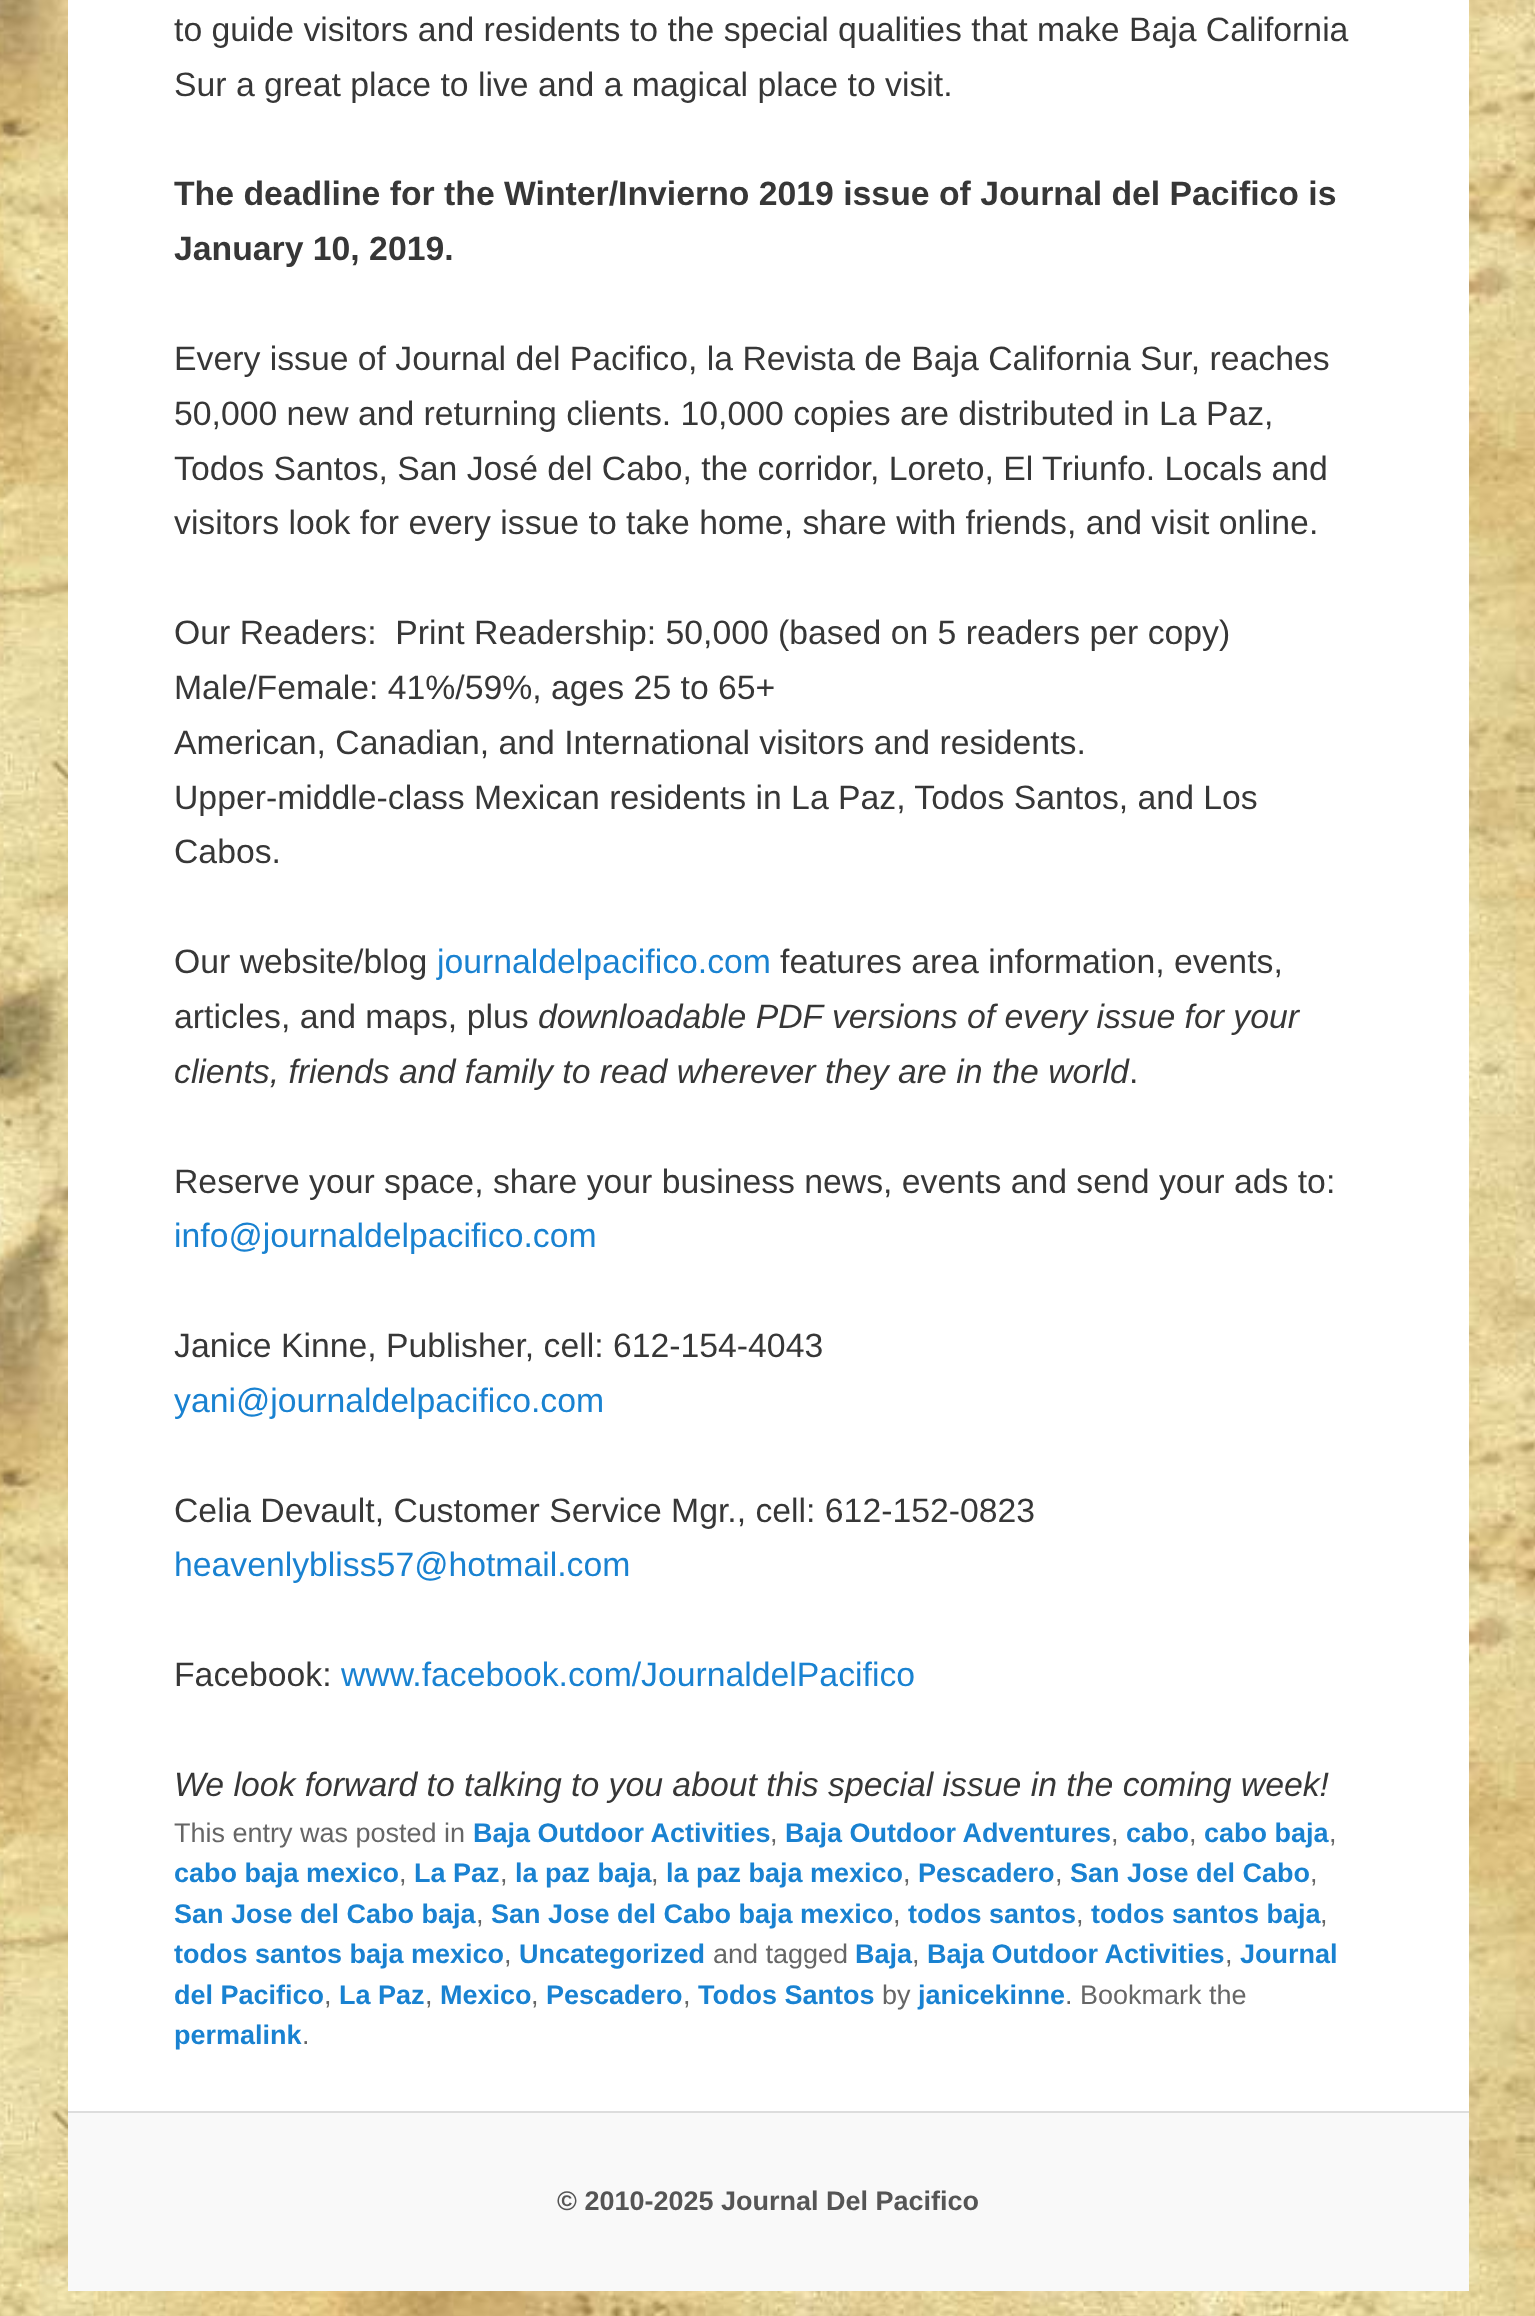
<svg xmlns="http://www.w3.org/2000/svg" width="1535" height="2316">
<style>
.a{font:33.75px Liberation Sans;fill:#373737}
.b{font:bold 33.75px Liberation Sans;fill:#373737}
.c{font:33.75px Liberation Sans;fill:#1982d1}
.d{font:italic 33.75px Liberation Sans;fill:#373737}
.e{font:27px Liberation Sans;fill:#666}
.f{font:bold 27px Liberation Sans;fill:#1982d1}
.g{font:bold 27px Liberation Sans;fill:#555}
</style>
<rect width="100%" height="100%" fill="#fff"/>
<image href="1.png" x="0" y="0" width="1535" height="2316"/>
<path fill="#fff" d="M68 0h1401v2111H68z"/>
<path fill="#f9f9f9" d="M68 2113h1401v178H68z"/>
<path fill="#ddd" d="M68 2111h1401v2H68z"/>
<text class="a" x="174" y="41">to guide visitors and residents to the special qualities that make Baja California</text>
<text class="a" x="174" y="96">Sur a great place to live and a magical place to visit.</text>
<text class="b" x="174" y="205">The deadline for the Winter/Invierno 2019 issue of Journal del Pacifico is</text>
<text class="b" x="174" y="260">January 10, 2019.</text>
<text class="a" x="174" y="370">Every issue of Journal del Pacifico, la Revista de Baja California Sur, reaches</text>
<text class="a" x="174" y="425">50,000 new and returning clients. 10,000 copies are distributed in La Paz,</text>
<text class="a" x="174" y="480">Todos Santos, San José del Cabo, the corridor, Loreto, El Triunfo. Locals and</text>
<text class="a" x="174" y="534">visitors look for every issue to take home, share with friends, and visit online.</text>
<text class="a" xml:space="preserve" x="174" y="644">Our Readers:  Print Readership: 50,000 (based on 5 readers per copy)</text>
<text class="a" x="174" y="699">Male/Female: 41%/59%, ages 25 to 65+</text>
<text class="a" x="174" y="754">American, Canadian, and International visitors and residents.</text>
<text class="a" x="174" y="809">Upper-middle-class Mexican residents in La Paz, Todos Santos, and Los</text>
<text class="a" x="174" y="863">Cabos.</text>
<text class="a" x="174" y="973">Our website/blog</text>
<text class="c" x="437" y="973">journaldelpacifico.com</text>
<text class="a" x="780" y="973">features area information, events,</text>
<text class="a" x="174" y="1028">articles, and maps, plus</text>
<text class="d" x="538" y="1028">downloadable PDF versions of every issue for your</text>
<text class="d" x="174" y="1083">clients, friends and family to read wherever they are in the world</text>
<text class="a" x="1129" y="1083">.</text>
<text class="a" x="174" y="1193">Reserve your space, share your business news, events and send your ads to:</text>
<text class="c" x="174" y="1247">info@journaldelpacifico.com</text>
<text class="a" x="174" y="1357">Janice Kinne, Publisher, cell: 612-154-4043</text>
<text class="c" x="174" y="1412">yani@journaldelpacifico.com</text>
<text class="a" x="174" y="1522">Celia Devault, Customer Service Mgr., cell: 612-152-0823</text>
<text class="c" x="174" y="1576">heavenlybliss57@hotmail.com</text>
<text class="a" x="174" y="1686">Facebook:</text>
<text class="c" x="341" y="1686">www.facebook.com/JournaldelPacifico</text>
<text class="d" x="174" y="1796">We look forward to talking to you about this special issue in the coming week!</text>
<text class="e" x="174" y="1842">This entry was posted in</text>
<text class="f" x="473" y="1842">Baja Outdoor Activities</text>
<text class="e" x="770" y="1842">,</text>
<text class="f" x="785" y="1842">Baja Outdoor Adventures</text>
<text class="e" x="1111" y="1842">,</text>
<text class="f" x="1126" y="1842">cabo</text>
<text class="e" x="1189" y="1842">,</text>
<text class="f" x="1204" y="1842">cabo baja</text>
<text class="e" x="1329" y="1842">,</text>
<text class="f" x="174" y="1882">cabo baja mexico</text>
<text class="e" x="399" y="1882">,</text>
<text class="f" x="414" y="1882">La Paz</text>
<text class="e" x="500" y="1882">,</text>
<text class="f" x="515" y="1882">la paz baja</text>
<text class="e" x="651" y="1882">,</text>
<text class="f" x="666" y="1882">la paz baja mexico</text>
<text class="e" x="903" y="1882">,</text>
<text class="f" x="918" y="1882">Pescadero</text>
<text class="e" x="1055" y="1882">,</text>
<text class="f" x="1070" y="1882">San Jose del Cabo</text>
<text class="e" x="1310" y="1882">,</text>
<text class="f" x="174" y="1923">San Jose del Cabo baja</text>
<text class="e" x="476" y="1923">,</text>
<text class="f" x="491" y="1923">San Jose del Cabo baja mexico</text>
<text class="e" x="893" y="1923">,</text>
<text class="f" x="908" y="1923">todos santos</text>
<text class="e" x="1076" y="1923">,</text>
<text class="f" x="1091" y="1923">todos santos baja</text>
<text class="e" x="1320" y="1923">,</text>
<text class="f" x="174" y="1963">todos santos baja mexico</text>
<text class="e" x="504" y="1963">,</text>
<text class="f" x="519" y="1963">Uncategorized</text>
<text class="e" x="713" y="1963">and tagged</text>
<text class="f" x="855" y="1963">Baja</text>
<text class="e" x="912" y="1963">,</text>
<text class="f" x="927" y="1963">Baja Outdoor Activities</text>
<text class="e" x="1225" y="1963">,</text>
<text class="f" x="1240" y="1963">Journal</text>
<text class="f" x="174" y="2004">del Pacifico</text>
<text class="e" x="324" y="2004">,</text>
<text class="f" x="339" y="2004">La Paz</text>
<text class="e" x="425" y="2004">,</text>
<text class="f" x="440" y="2004">Mexico</text>
<text class="e" x="531" y="2004">,</text>
<text class="f" x="546" y="2004">Pescadero</text>
<text class="e" x="683" y="2004">,</text>
<text class="f" x="698" y="2004">Todos Santos</text>
<text class="e" x="882" y="2004">by</text>
<text class="f" x="918" y="2004">janicekinne</text>
<text class="e" x="1065" y="2004">. Bookmark the</text>
<text class="f" x="174" y="2044">permalink</text>
<text class="e" x="302" y="2044">.</text>
<text class="g" x="557" y="2210">© 2010-2025 Journal Del Pacifico</text>
</svg>
